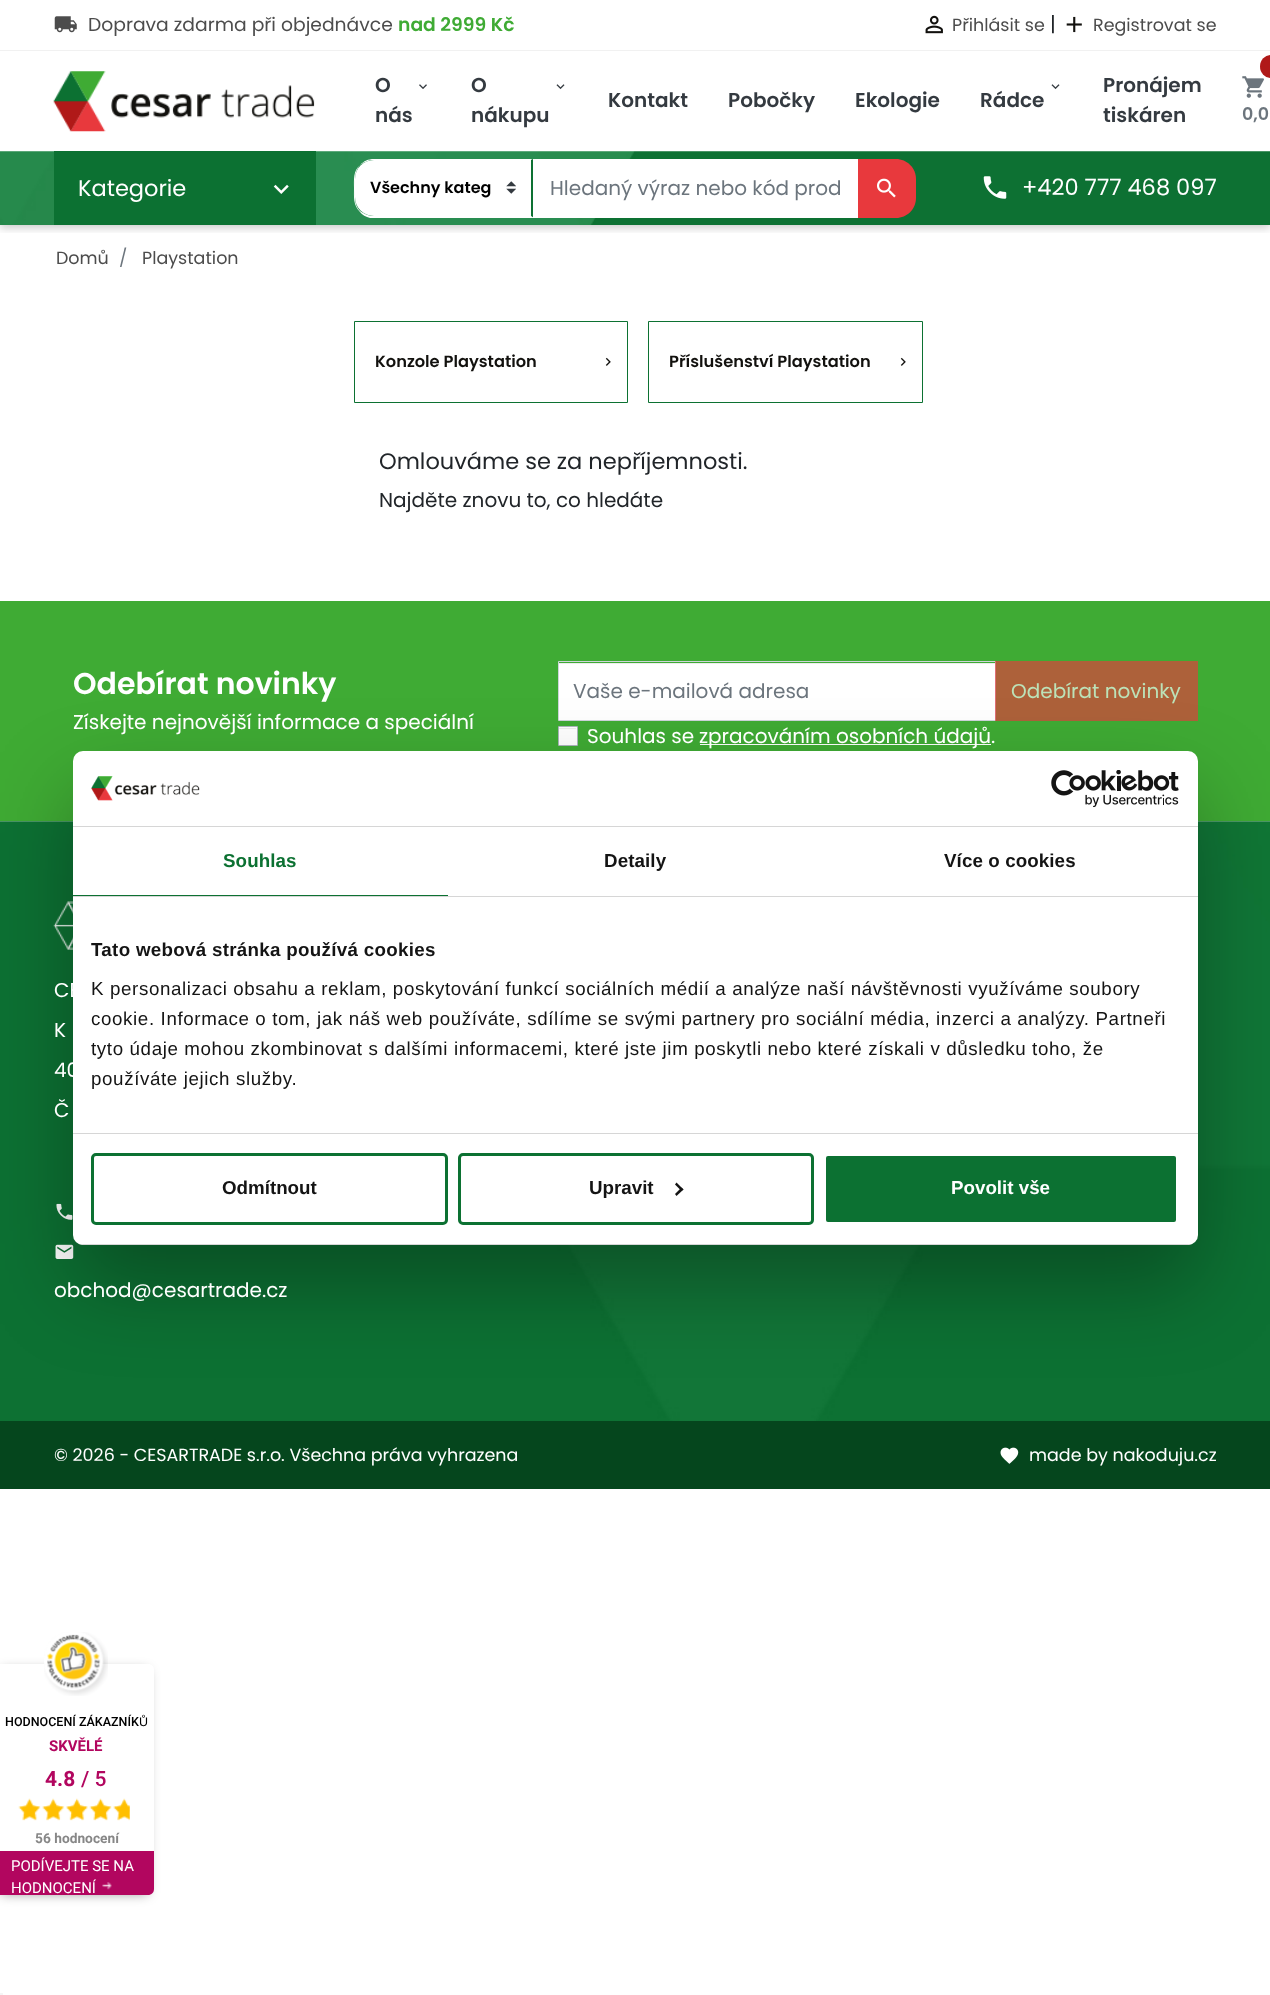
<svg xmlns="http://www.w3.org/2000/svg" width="1270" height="1995">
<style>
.a{font:18.75px Poppins;fill:#4c4c4c}
.b{font:600 18.75px Poppins;fill:#3fab34}
.c{font:17.5px Poppins;fill:#4c4c4c}
.d{font:20px Poppins;fill:#212529}
.e{font:600 20px Poppins;fill:#343a40}
.f{font:600 17.5px Poppins;fill:#6c757d}
.g{font:22.5px Poppins;fill:#fff}
.h{font:600 16px Poppins;fill:#000}
.i{font:20px Poppins;fill:#6c757d}
.j{font:17.5px Poppins;fill:#6c757d}
.k{font:600 16.25px Poppins;fill:#12110e}
.l{font:22.5px Poppins;fill:#212529}
.m{font:600 30px Poppins;fill:#fff}
.n{font:20px Poppins;fill:#fff}
.o{font:20px Poppins;fill:#bce2b8}
.p{font:500 12.5px Roboto;fill:#000}
.q{font:12.5px Liberation Sans;fill:#000}
.r{font:bold 15px Roboto;fill:#b2065f}
.s{font:bold 21px Roboto;fill:#b2065f}
.t{font:500 21px Roboto;fill:#b2065f}
.u{font:bold 13.75px Roboto;fill:#878787}
.v{font:15px Roboto;fill:#fff}
.w{font:17.5px Poppins;fill:#fff}
.x{font:bold 18.75px Liberation Sans;letter-spacing:0.1px;fill:#0c7132}
.y{font:bold 18.75px Liberation Sans;letter-spacing:0.1px;fill:#141414}
.z{font:bold 18.75px Liberation Sans;letter-spacing:0.3px;fill:#141414}
.a1{font:18.75px Liberation Sans;letter-spacing:0.62px;fill:#141414}
.b1{font:bold 18.75px Liberation Sans;fill:#141414}
.c1{font:bold 18.75px Liberation Sans;fill:#fff}
</style>
<defs>
<clipPath id="clip1"><path d="M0 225h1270v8H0z"/></clipPath>
<clipPath id="clip2"><rect x="73" y="751" width="1125" height="494" rx="10"/></clipPath>
<clipPath id="clip3"><path d="M550 173h290v31H550z"/></clipPath>
</defs>
<rect width="100%" height="100%" fill="#fff"/>
<g clip-path="url(#clip1)">
<path fill="#00000033" filter="blur(4px)" d="M0 3h1270v225H0z"/>
</g>
<path fill="#f1f1f1" d="M0 50h1270v1H0z"/>
<image href="1.png" x="54" y="16" width="23" height="17"/>
<image href="2.png" x="925" y="15" width="18" height="19"/>
<image href="3.png" x="1066" y="16" width="16" height="17"/>
<image href="4.png" x="53" y="71" width="262" height="61"/>
<image href="5.png" x="419" y="84" width="8" height="5"/>
<image href="6.png" x="556" y="84" width="9" height="6"/>
<image href="6.png" x="1051" y="84" width="9" height="6"/>
<image href="7.png" x="1242" y="76" width="22" height="22"/>
<rect fill="#b01918" x="1260" y="55" width="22" height="23" rx="11.5"/>
<image href="8.png" x="0" y="151" width="1270" height="74"/>
<path fill="#0c7132" d="M54 151h262v74H54z"/>
<image href="9.png" x="273" y="184" width="16" height="10"/>
<path fill="#fff" d="M374 160h157v56h-157c-10.5 0-19-8.5-19-19v-18c0-10.5 8.5-19 19-19z"/>
<image href="10.png" x="506" y="181" width="10" height="13"/>
<path fill="#fff" d="M374 159c-6 0-10 2-14 6c4-3 8-5 14-5h157l2-1z"/>
<path fill="#0d7133" d="M534 159l-3 1v56l3 2z"/>
<path fill="#fff" d="M534 218h-164c-4-1-8-3-10-6v-1c4 3 9 5 14 5h157z"/>
<path fill="#fff" d="M360 165c-7 6-6 15-6 23c0 9-1 17 6 24v-1c-6-6-5-14-5-23c0-8-1-16 5-23z"/>
<path fill="#fff" stroke="#fff" stroke-width="3" d="M534.5 160.5h322v56H534.5z"/>
<path fill="#e8393d" d="M858 159h38c11 0 20 9 20 20v19c0 11-9 20-20 20h-38z"/>
<image href="11.png" x="877" y="178" width="19" height="20"/>
<image href="12.png" x="983" y="176" width="24" height="23"/>
<path fill="none" stroke="#0c7132" d="M354.5 321.5h273v81H354.5z"/>
<image href="13.png" x="605" y="357" width="6" height="9"/>
<path fill="none" stroke="#0c7132" d="M648.5 321.5h274v81H648.5z"/>
<image href="13.png" x="900" y="357" width="6" height="9"/>
<path fill="#3fab34" d="M0 601h1270v220H0z"/>
<path fill="#fff" d="M559 664h436v56H559z"/>
<path fill="#ededed" d="M559 663h436v1H559z"/>
<path fill="none" stroke="#ced4da" d="M558.5 661.5h437v59H558.5z"/>
<path fill="#e8393da6" d="M995 661h203v60H995z"/>
<path fill="#fff" d="M559 727h18v18H559z"/>
<path fill="#ededed" d="M559 728h17v1H559z"/>
<path fill="none" stroke="#adb5bd" d="M558.5 726.5h19v19H558.5z"/>
<path fill="#fff" d="M700 744h291v1H700z"/>
<image href="14.png" x="0" y="821" width="1270" height="600"/>
<image href="15.png" x="53" y="901" width="20" height="49"/>
<image href="16.png" x="56" y="1203" width="17" height="17"/>
<image href="17.png" x="55" y="1244" width="19" height="15"/>
<rect fill="#00000066" filter="blur(6px)" x="1" y="1670" width="147" height="224" rx="2.5"/>
<path fill="#fff" d="M0 1664h148c3.5 0 6 2.5 6 6v219c0 3.5-2.5 6-6 6h-148z"/>
<image href="18.png" x="44" y="1632" width="64" height="64"/>
<image href="19.png" x="18" y="1798" width="112" height="23"/>
<path fill="#b2065f" d="M0 1851h154v38c0 3.5-2.5 6-6 6h-148z"/>
<image href="20.png" x="102" y="1882" width="10" height="8"/>
<path fill="#05461d" d="M0 1421h1270v68H0z"/>
<image href="21.png" x="1000" y="1447" width="19" height="17"/>
<rect fill="#0000004d" filter="blur(42.5px)" x="73" y="791" width="1125" height="494" rx="10"/>
<rect fill="#fff" x="73" y="751" width="1125" height="494" rx="10"/>
<path fill="#d6d6d6" d="M73 826h1125v1H73z"/>
<image href="22.png" x="91" y="776" width="109" height="25"/>
<image href="23.png" x="1051" y="770" width="128" height="38"/>
<path fill="#d6d6d6" d="M73 896h1125v1H73z"/>
<path fill="#0c7132" d="M73 895h375v1H73z"/>
<path fill="#d6d6d6" d="M73 1133h1125v1H73z"/>
<g clip-path="url(#clip2)">
<path fill="#d6d6d6" d="M73 1244h1125v1H73z"/>
</g>
<rect fill="none" stroke="#0c7132" stroke-width="3" x="92.5" y="1154.5" width="354" height="69" rx="3.5"/>
<rect fill="none" stroke="#0c7132" stroke-width="3" x="459.5" y="1154.5" width="353" height="69" rx="3.5"/>
<path fill="#141414" d="M676.5 1182.5l7 7l-2 1.5l-6.5-6.5z"/>
<path fill="#141414" d="M681.5 1187.5l2 2l-7 6.5l-1.5-2z"/>
<rect fill="#0c7132" stroke="#fff" stroke-width="3" x="824.5" y="1154.5" width="353" height="69" rx="3.5"/>
<path fill="#f5f5f5" d="M0 1993h3v2H0z"/>
<text class="a" x="88" y="31">Doprava zdarma při objednávce</text>
<text class="b" x="398" y="31">nad 2999 Kč</text>
<text class="c" x="952" y="31">Přihlásit se</text>
<text class="d" x="1050" y="31">|</text>
<text class="c" x="1093" y="31">Registrovat se</text>
<text class="e" x="375" y="92">O</text>
<text class="e" x="375" y="122">nás</text>
<text class="e" x="471" y="92">O</text>
<text class="e" x="471" y="122">nákupu</text>
<text class="e" x="608" y="107">Kontakt</text>
<text class="e" x="728" y="107">Pobočky</text>
<text class="e" x="855" y="107">Ekologie</text>
<text class="e" x="980" y="107">Rádce</text>
<text class="e" x="1103" y="92">Pronájem</text>
<text class="e" x="1103" y="122">tiskáren</text>
<text class="f" x="1242" y="120">0,0</text>
<text class="g" x="78" y="196">Kategorie</text>
<text class="h" x="370" y="193">Všechny kateg</text>
<g clip-path="url(#clip3)">
<text class="i" x="550" y="195">Hledaný výraz nebo kód prod</text>
</g>
<text class="g" x="1022" y="195">+420 777 468 097</text>
<text class="c" x="56" y="264">Domů</text>
<text class="j" x="119" y="264">/</text>
<text class="c" x="142" y="264">Playstation</text>
<text class="k" x="375" y="367">Konzole Playstation</text>
<text class="k" x="669" y="367">Příslušenství Playstation</text>
<text class="l" x="379" y="469">Omlouváme se za nepříjemnosti.</text>
<text class="d" x="379" y="507">Najděte znovu to, co hledáte</text>
<text class="m" x="73" y="694">Odebírat novinky</text>
<text class="n" x="73" y="729">Získejte nejnovější informace a speciální</text>
<text class="i" x="573" y="698">Vaše e-mailová adresa</text>
<text class="o" x="1011" y="698">Odebírat novinky</text>
<text class="n" x="587" y="743">Souhlas se</text>
<text class="n" x="699" y="743">zpracováním osobních údajů.</text>
<text class="n" x="54" y="997">CE</text>
<text class="n" x="54" y="1037">K</text>
<text class="n" x="54" y="1077">40</text>
<text class="n" x="54" y="1117">Č</text>
<text class="n" x="54" y="1297">obchod@cesartrade.cz</text>
<text class="p" x="5" y="1726">HODNOCENÍ ZÁKAZNÍK</text>
<text class="q" x="139" y="1726">Ů</text>
<text class="r" x="49" y="1751">SKVĚLÉ</text>
<text class="s" x="45" y="1786">4.8</text>
<text class="t" x="81" y="1786">/ 5</text>
<text class="u" x="35" y="1843">56 hodnocení</text>
<text class="v" x="11" y="1871">PODÍVEJTE SE NA</text>
<text class="v" x="11" y="1893">HODNOCENÍ</text>
<text class="w" x="54" y="1461">© 2026 - CESARTRADE s.r.o. Všechna práva vyhrazena</text>
<text class="w" x="1029" y="1461">made by nakoduju.cz</text>
<text class="x" x="223" y="867">Souhlas</text>
<text class="y" x="604" y="867">Detaily</text>
<text class="y" x="944" y="867">Více o cookies</text>
<text class="z" x="91" y="956">Tato webová stránka používá cookies</text>
<text class="a1" x="91" y="995">K personalizaci obsahu a reklam, poskytování funkcí sociálních médií a analýze naší návštěvnosti využíváme soubory</text>
<text class="a1" x="91" y="1025">cookie. Informace o tom, jak náš web používáte, sdílíme se svými partnery pro sociální média, inzerci a analýzy. Partneři</text>
<text class="a1" x="91" y="1055">tyto údaje mohou zkombinovat s dalšími informacemi, které jste jim poskytli nebo které získali v důsledku toho, že</text>
<text class="a1" x="91" y="1085">používáte jejich služby.</text>
<text class="b1" x="222" y="1194">Odmítnout</text>
<text class="b1" x="589" y="1194">Upravit</text>
<text class="c1" x="951" y="1194">Povolit vše</text>
</svg>
